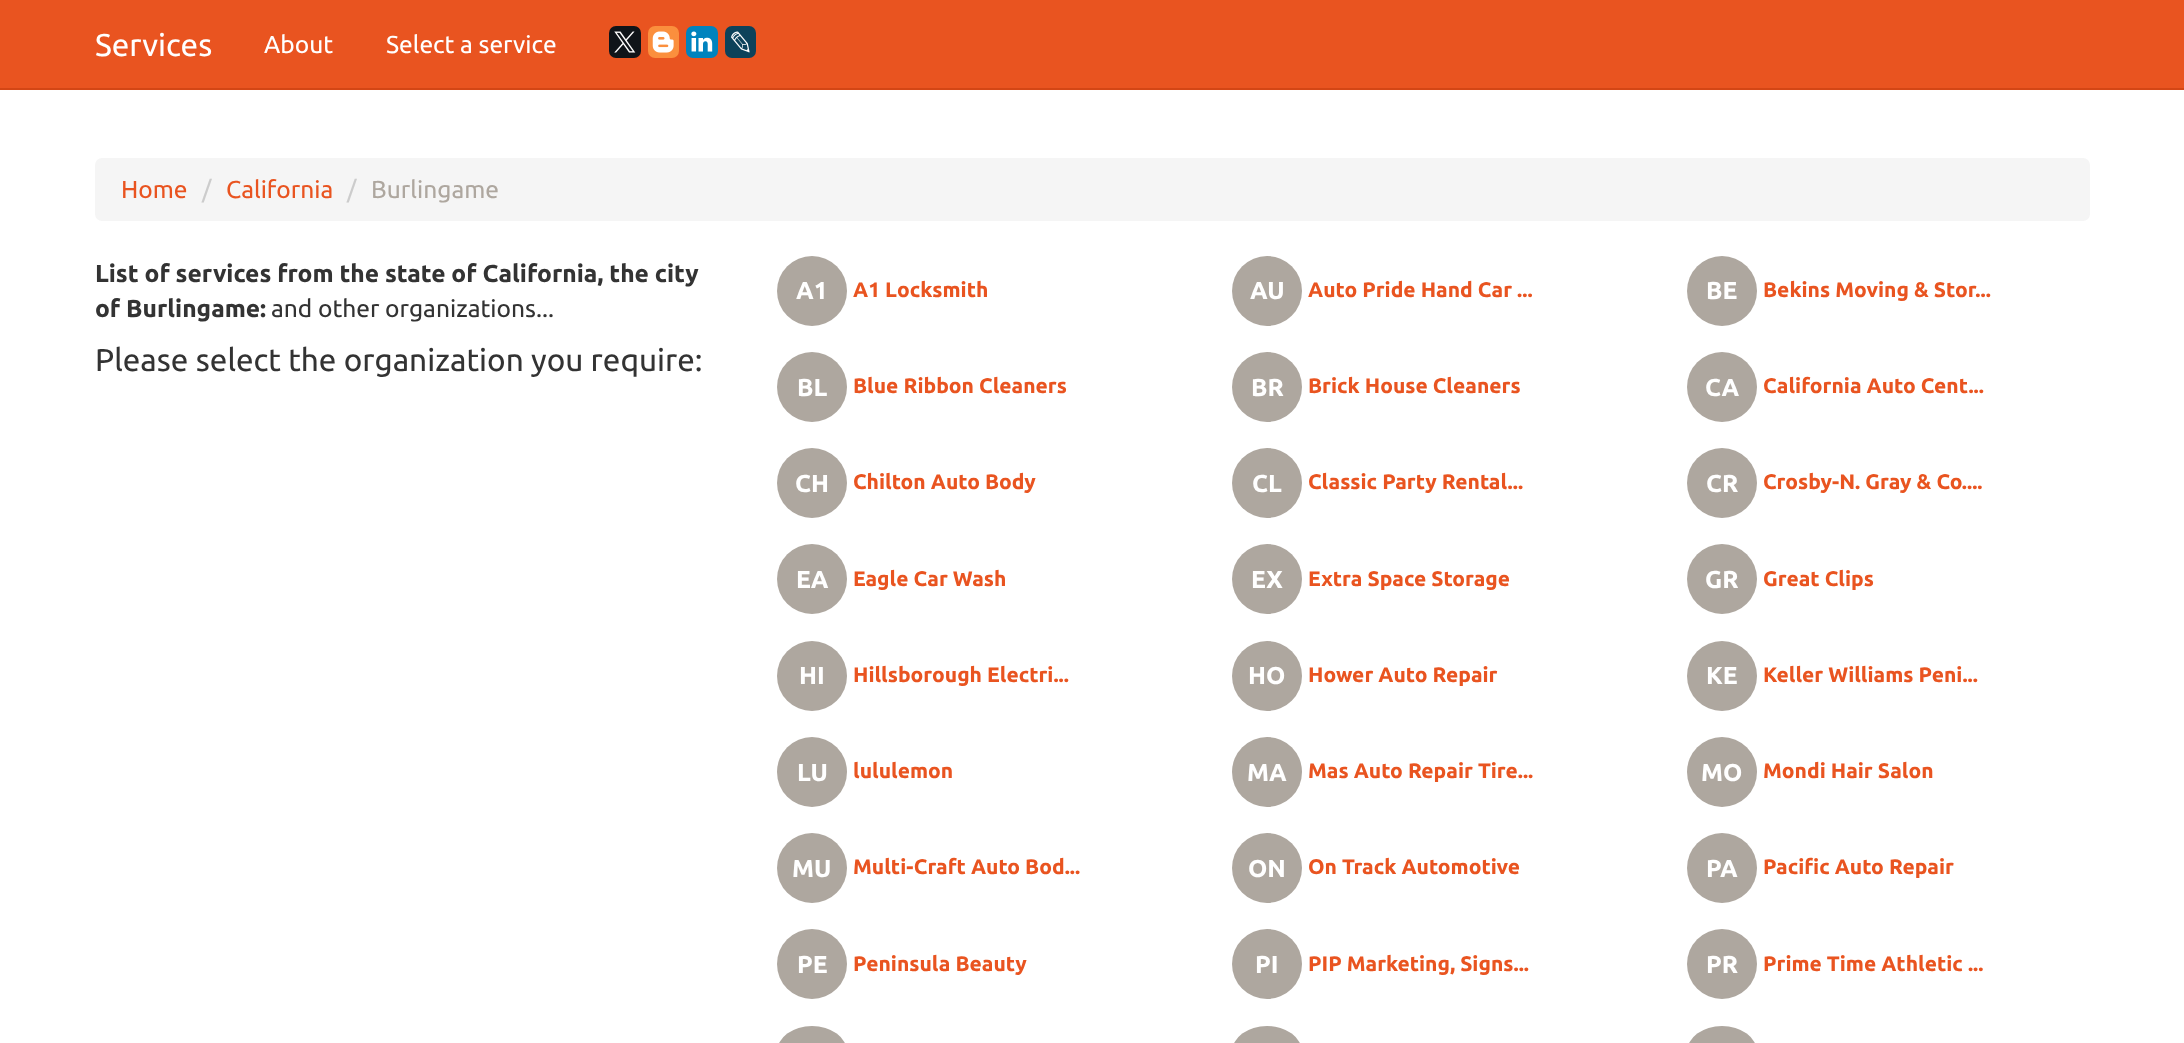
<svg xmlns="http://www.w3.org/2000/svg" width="2184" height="1043">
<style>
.a{font:31.5px Ubuntu;fill:#fff}
.b{font:24.5px Ubuntu;fill:#fff}
.c{font:24.5px Ubuntu;fill:#e95420}
.d{font:24.5px Ubuntu;fill:#ccc}
.e{font:24.5px Ubuntu;fill:#aea79f}
.f{font:bold 24.5px Ubuntu;fill:#333}
.g{font:24.5px Ubuntu;fill:#333}
.h{font:31.5px Ubuntu;fill:#333}
.i{font:bold 24.5px Ubuntu;fill:#fff}
.j{font:bold 21px Ubuntu;fill:#e95420}
</style>
<rect width="100%" height="100%" fill="#fff"/>
<path fill="#e95420" d="M0 0h2184v88H0z"/>
<path fill="#d34615" d="M0 88h2184v2H0z"/>
<rect fill="#0f1419" x="609" y="26" width="32" height="32" rx="7"/>
<image href="1.png" x="614" y="31" width="22" height="22"/>
<rect fill="#fb8f3d" x="648" y="26" width="31" height="32" rx="7"/>
<image href="2.png" x="652" y="31" width="22" height="22"/>
<rect fill="#0083be" x="686" y="26" width="32" height="32" rx="7"/>
<image href="3.png" x="691" y="31" width="22" height="21"/>
<rect fill="#0d425a" x="725" y="26" width="31" height="32" rx="7"/>
<image href="4.png" x="731" y="31" width="19" height="22"/>
<rect fill="#f5f5f5" x="95" y="158" width="1995" height="63" rx="7"/>
<circle fill="#aea79f" cx="812" cy="291" r="35"/>
<circle fill="#aea79f" cx="1267" cy="291" r="35"/>
<circle fill="#aea79f" cx="1722" cy="291" r="35"/>
<circle fill="#aea79f" cx="812" cy="387" r="35"/>
<circle fill="#aea79f" cx="1267" cy="387" r="35"/>
<circle fill="#aea79f" cx="1722" cy="387" r="35"/>
<circle fill="#aea79f" cx="812" cy="483" r="35"/>
<circle fill="#aea79f" cx="1267" cy="483" r="35"/>
<circle fill="#aea79f" cx="1722" cy="483" r="35"/>
<circle fill="#aea79f" cx="812" cy="579" r="35"/>
<circle fill="#aea79f" cx="1267" cy="579" r="35"/>
<circle fill="#aea79f" cx="1722" cy="579" r="35"/>
<circle fill="#aea79f" cx="812" cy="676" r="35"/>
<circle fill="#aea79f" cx="1267" cy="676" r="35"/>
<circle fill="#aea79f" cx="1722" cy="676" r="35"/>
<circle fill="#aea79f" cx="812" cy="772" r="35"/>
<circle fill="#aea79f" cx="1267" cy="772" r="35"/>
<circle fill="#aea79f" cx="1722" cy="772" r="35"/>
<circle fill="#aea79f" cx="812" cy="868" r="35"/>
<circle fill="#aea79f" cx="1267" cy="868" r="35"/>
<circle fill="#aea79f" cx="1722" cy="868" r="35"/>
<circle fill="#aea79f" cx="812" cy="964" r="35"/>
<circle fill="#aea79f" cx="1267" cy="964" r="35"/>
<circle fill="#aea79f" cx="1722" cy="964" r="35"/>
<rect fill="#aea79f" x="777" y="1026" width="70" height="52" rx="35"/>
<rect fill="#aea79f" x="1232" y="1026" width="70" height="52" rx="35"/>
<rect fill="#aea79f" x="1687" y="1026" width="70" height="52" rx="35"/>
<text class="a" x="95" y="56">Services</text>
<text class="b" x="264" y="53">About</text>
<text class="b" x="386" y="53">Select a service</text>
<text class="c" x="121" y="198">Home</text>
<text class="d" x="202" y="198">/</text>
<text class="c" x="226" y="198">California</text>
<text class="d" x="347" y="198">/</text>
<text class="e" x="371" y="198">Burlingame</text>
<text class="f" x="95" y="282">List of services from the state of California, the city</text>
<text class="f" x="95" y="317">of Burlingame:</text>
<text class="g" x="271" y="317">and other organizations...</text>
<text class="h" x="95" y="371">Please select the organization you require:</text>
<text class="i" x="796" y="299">A1</text>
<text class="j" x="853" y="297">A1 Locksmith</text>
<text class="i" x="1250" y="299">AU</text>
<text class="j" x="1308" y="297">Auto Pride Hand Car ...</text>
<text class="i" x="1706" y="299">BE</text>
<text class="j" x="1763" y="297">Bekins Moving &amp; Stor...</text>
<text class="i" x="797" y="396">BL</text>
<text class="j" x="853" y="393">Blue Ribbon Cleaners</text>
<text class="i" x="1251" y="396">BR</text>
<text class="j" x="1308" y="393">Brick House Cleaners</text>
<text class="i" x="1705" y="396">CA</text>
<text class="j" x="1763" y="393">California Auto Cent...</text>
<text class="i" x="795" y="492">CH</text>
<text class="j" x="853" y="489">Chilton Auto Body</text>
<text class="i" x="1252" y="492">CL</text>
<text class="j" x="1308" y="489">Classic Party Rental...</text>
<text class="i" x="1706" y="492">CR</text>
<text class="j" x="1763" y="489">Crosby-N. Gray &amp; Co....</text>
<text class="i" x="796" y="588">EA</text>
<text class="j" x="853" y="586">Eagle Car Wash</text>
<text class="i" x="1251" y="588">EX</text>
<text class="j" x="1308" y="586">Extra Space Storage</text>
<text class="i" x="1705" y="588">GR</text>
<text class="j" x="1763" y="586">Great Clips</text>
<text class="i" x="799" y="684">HI</text>
<text class="j" x="853" y="682">Hillsborough Electri...</text>
<text class="i" x="1248" y="684">HO</text>
<text class="j" x="1308" y="682">Hower Auto Repair</text>
<text class="i" x="1706" y="684">KE</text>
<text class="j" x="1763" y="682">Keller Williams Peni...</text>
<text class="i" x="797" y="781">LU</text>
<text class="j" x="853" y="778">lululemon</text>
<text class="i" x="1247" y="781">MA</text>
<text class="j" x="1308" y="778">Mas Auto Repair Tire...</text>
<text class="i" x="1701" y="781">MO</text>
<text class="j" x="1763" y="778">Mondi Hair Salon</text>
<text class="i" x="792" y="877">MU</text>
<text class="j" x="853" y="874">Multi-Craft Auto Bod...</text>
<text class="i" x="1248" y="877">ON</text>
<text class="j" x="1308" y="874">On Track Automotive</text>
<text class="i" x="1706" y="877">PA</text>
<text class="j" x="1763" y="874">Pacific Auto Repair</text>
<text class="i" x="797" y="973">PE</text>
<text class="j" x="853" y="971">Peninsula Beauty</text>
<text class="i" x="1255" y="973">PI</text>
<text class="j" x="1308" y="971">PIP Marketing, Signs...</text>
<text class="i" x="1706" y="973">PR</text>
<text class="j" x="1763" y="971">Prime Time Athletic ...</text>
</svg>
